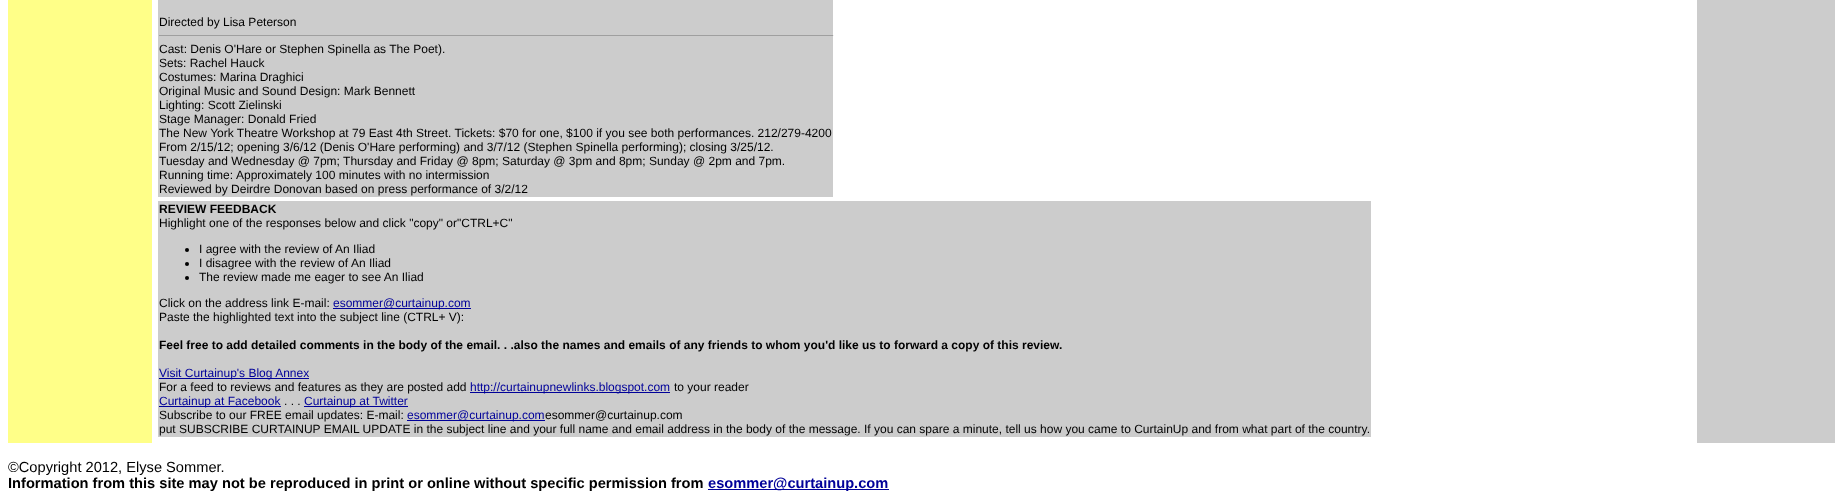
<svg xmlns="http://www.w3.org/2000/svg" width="1843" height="499">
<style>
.a{font:12px Liberation Sans;fill:#000}
.b{font:bold 12px Liberation Sans;fill:#000}
.c{font:12px Liberation Sans;fill:#009}
.d{font:14.65px Liberation Sans;fill:#000}
.e{font:bold 14.65px Liberation Sans;fill:#000}
.f{font:bold 14.65px Liberation Sans;fill:#009}
</style>
<rect width="100%" height="100%" fill="#fff"/>
<path fill="#ff8" d="M8 0h144v443H8z"/>
<path fill="#ccc" d="M158 0h675v197H158z"/>
<path fill="#9f9f9f" d="M159 35h675v1H159z"/>
<path fill="#eee" d="M833 35h1v1H833z"/>
<path fill="#ccc" d="M158 201h1213v236H158z"/>
<circle fill="#000" cx="187" cy="250" r="2"/>
<circle fill="#000" cx="187" cy="264" r="2"/>
<circle fill="#000" cx="187" cy="278" r="2"/>
<path fill="#009" d="M333 308h138v1H333z"/>
<path fill="#009" d="M159 378h150v1H159z"/>
<path fill="#009" d="M470 392h200v1H470z"/>
<path fill="#009" d="M159 406h122v1H159z"/>
<path fill="#009" d="M304 406h104v1H304z"/>
<path fill="#009" d="M407 420h138v1H407z"/>
<path fill="#ccc" d="M1697 0h138v443H1697z"/>
<path fill="#009" d="M708 489h181v1H708z"/>
<text class="a" x="159" y="26">Directed by Lisa Peterson</text>
<text class="a" x="159" y="53">Cast: Denis O'Hare or Stephen Spinella as The Poet).</text>
<text class="a" x="159" y="67">Sets: Rachel Hauck</text>
<text class="a" x="159" y="81">Costumes: Marina Draghici</text>
<text class="a" x="159" y="95">Original Music and Sound Design: Mark Bennett</text>
<text class="a" x="159" y="109">Lighting: Scott Zielinski</text>
<text class="a" x="159" y="123">Stage Manager: Donald Fried</text>
<text class="a" x="159" y="137">The New York Theatre Workshop at 79 East 4th Street. Tickets: $70 for one, $100 if you see both performances. 212/279-4200</text>
<text class="a" x="159" y="151">From 2/15/12; opening 3/6/12 (Denis O'Hare performing) and 3/7/12 (Stephen Spinella performing); closing 3/25/12.</text>
<text class="a" x="159" y="165">Tuesday and Wednesday @ 7pm; Thursday and Friday @ 8pm; Saturday @ 3pm and 8pm; Sunday @ 2pm and 7pm.</text>
<text class="a" x="159" y="179">Running time:</text>
<text class="a" x="236" y="179">Approximately 100 minutes with no intermission</text>
<text class="a" x="159" y="193">Reviewed by Deirdre Donovan based on press performance of 3/2/12</text>
<text class="b" x="159" y="213">REVIEW FEEDBACK</text>
<text class="a" x="159" y="227">Highlight one of the responses below and click "copy" or"CTRL+C"</text>
<text class="a" x="199" y="253">I agree with the review of An Iliad</text>
<text class="a" x="199" y="267">I disagree with the</text>
<text class="a" x="300" y="267">review of</text>
<text class="a" x="351" y="267">An Iliad</text>
<text class="a" x="199" y="281">The review made me eager to see An Iliad</text>
<text class="a" x="159" y="307">Click on the address link E-mail:</text>
<text class="c" x="333" y="307">esommer@curtainup.com</text>
<text class="a" x="159" y="321">Paste the highlighted text into the subject line (CTRL+ V):</text>
<text class="b" x="159" y="349">Feel free to add detailed comments in the body of the email. . .also the names and emails of any friends to whom you'd like us to forward a copy of this review.</text>
<text class="c" x="159" y="377">Visit Curtainup's Blog Annex</text>
<text class="a" x="159" y="391">For a feed to reviews and features as they are posted add</text>
<text class="c" x="470" y="391">http://curtainupnewlinks.blogspot.com</text>
<text class="a" x="674" y="391">to your reader</text>
<text class="c" x="159" y="405">Curtainup at Facebook</text>
<text class="a" x="284" y="405">. . .</text>
<text class="c" x="304" y="405">Curtainup at Twitter</text>
<text class="a" x="159" y="419">Subscribe to our FREE email updates: E-mail:</text>
<text class="c" x="407" y="419">esommer@curtainup.com</text>
<text class="a" x="545" y="419">esommer@curtainup.com</text>
<text class="a" x="159" y="433">put SUBSCRIBE CURTAINUP EMAIL UPDATE in the subject line and your full name and email address in the body of the message. If you can spare a minute, tell us how you came to CurtainUp and from what part of the country.</text>
<text class="d" x="8" y="472">©Copyright 2012, Elyse Sommer.</text>
<text class="e" x="8" y="488">Information from this site may not be reproduced in print or online without specific permission from</text>
<text class="f" x="708" y="488">esommer@curtainup.com</text>
</svg>
